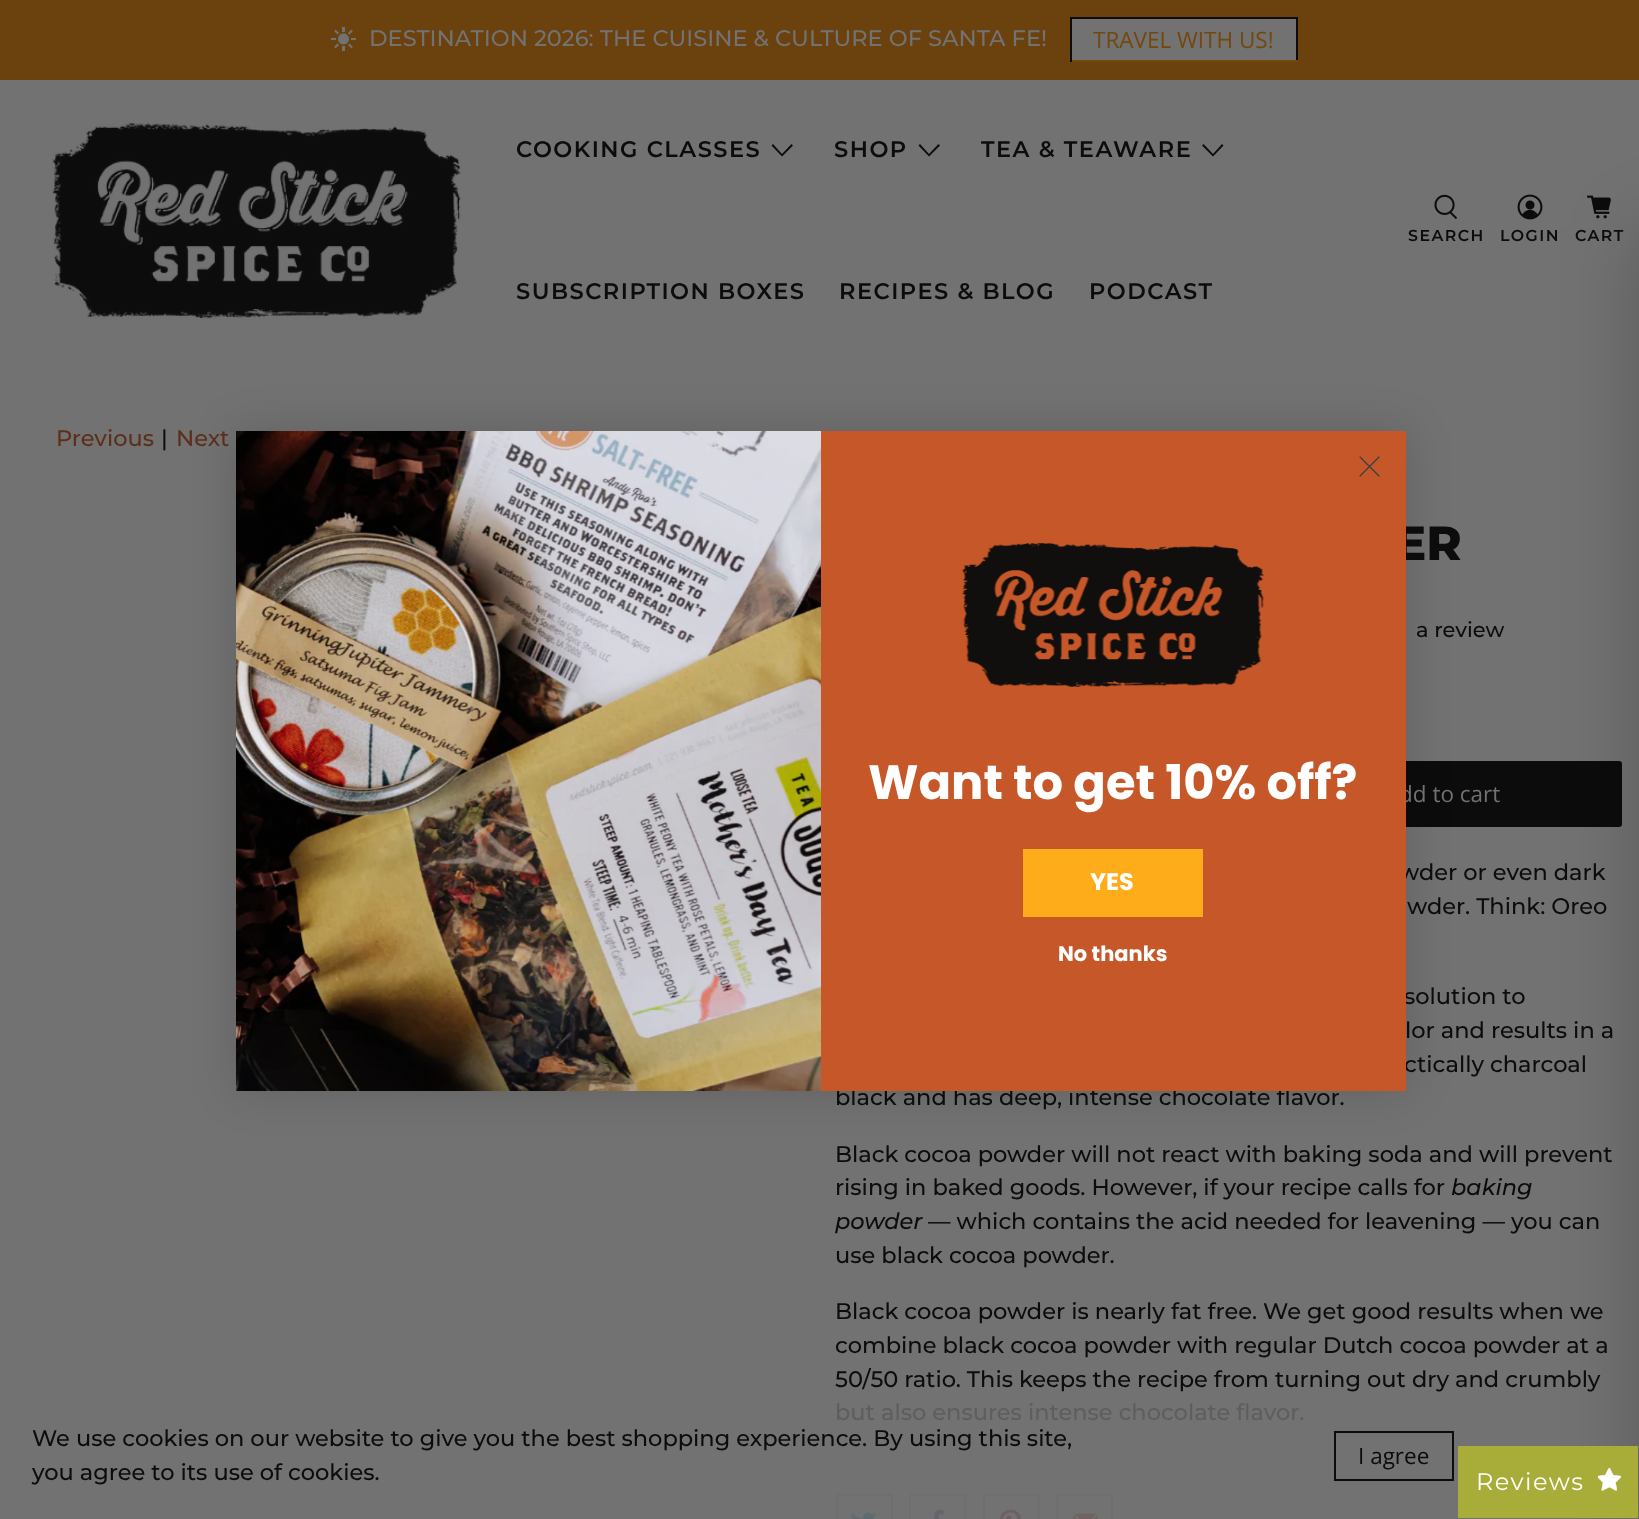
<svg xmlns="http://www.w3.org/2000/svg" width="1639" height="1519">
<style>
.a{font:500 22.5px Montserrat;fill:#727272}
.b{font:22.5px Open Sans;fill:#72480e}
.c{font:600 22.5px Montserrat;letter-spacing:1.5px;fill:#0c0c0c}
.d{font:600 15.75px Montserrat;letter-spacing:1.5px;fill:#0c0c0c}
.e{font:500 22.5px Montserrat;fill:#5b2f1c}
.f{font:500 22.5px Montserrat;fill:#0c0c0c}
.g{font:800 48px Montserrat;fill:#0c0c0c}
.h{font:500 21px Montserrat;fill:#0c0c0c}
.i{font:22.5px Open Sans;fill:#727272}
.j{font:italic 500 22.5px Montserrat;fill:#0c0c0c}
.k{font:500 22.5px Montserrat;fill:#5e5e5e}
.l{font:bold 48px Poppins;fill:#fff}
.m{font:bold 24px Poppins;fill:#fff}
.n{font:bold 21px Poppins;fill:#fff}
.o{font:22.5px Open Sans;fill:#0c0c0c}
.p{font:100 24px Montserrat;letter-spacing:1.5px;fill:#fff}
</style>
<rect width="100%" height="100%" fill="#727272"/>
<path fill="#6b410e" d="M0 0h1639v80H0z"/>
<image href="1.png" x="331" y="27" width="25" height="24"/>
<path fill="#727272" d="M1072 19h224v41H1072z"/>
<path fill="#0c0c0c" d="M1070 17h228v2H1070z"/>
<path fill="#0c0c0c" d="M1296 17h2v45H1296z"/>
<path fill="#72480e" d="M1070 60h228v2H1070z"/>
<path fill="#0c0c0c" d="M1070 17h2v45H1070z"/>
<image href="2.png" x="52" y="122" width="409" height="197"/>
<path fill="#0c0c0c" d="M782 156.5l-10.5-11l1.5-1.5l9 10l9.5-10l1.5 1.5z"/>
<path fill="#0c0c0c" d="M929 156.5l-10.5-11l1.5-1.5l9 10l9.5-10l1.5 1.5z"/>
<path fill="#0c0c0c" d="M1213 156.5l-11-11l1.5-1.5l9.5 10l9-10l1.5 1.5z"/>
<image href="3.png" x="1434" y="194" width="24" height="26"/>
<image href="4.png" x="1517" y="194" width="26" height="26"/>
<image href="5.png" x="1587" y="195" width="24" height="24"/>
<rect fill="#0c0c0c" x="1227" y="761" width="395" height="66" rx="3"/>
<path fill="none" stroke="#6f6f6f" stroke-width="2" d="M837 1495h55v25H837z"/>
<image href="6.png" x="851" y="1512" width="26" height="7"/>
<path fill="none" stroke="#6f6f6f" stroke-width="2" d="M910 1495h55v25H910z"/>
<image href="7.png" x="934" y="1509" width="10" height="10"/>
<path fill="none" stroke="#6f6f6f" stroke-width="2" d="M984 1495h55v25H984z"/>
<image href="8.png" x="1000" y="1509" width="21" height="10"/>
<path fill="none" stroke="#6f6f6f" stroke-width="2" d="M1057 1495h55v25H1057z"/>
<image href="9.png" x="1073" y="1513" width="25" height="6"/>
<path fill="#00000026" filter="blur(22.5px)" d="M236 431h1170v660H236z"/>
<image href="10.png" x="236" y="431" width="585" height="660"/>
<path fill="none" stroke="#0c0c0c" stroke-width="2" d="M1335 1432h118v48H1335z"/>
<path fill="#00000033" filter="blur(37.5px)" d="M1638 228h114v1289H1638z"/>
<path fill="#a8ad39" d="M1458 1446h180v72H1458z"/>
<image href="12.png" x="1598" y="1467" width="24" height="24"/>
<text class="a" x="369" y="46">DESTINATION 2026: THE CUISINE &amp; CULTURE OF SANTA FE!</text>
<text class="b" x="1093" y="48">TRAVEL WITH US!</text>
<text class="c" x="516" y="157">COOKING CLASSES</text>
<text class="c" x="834" y="157">SHOP</text>
<text class="c" x="981" y="157">TEA &amp; TEAWARE</text>
<text class="c" x="516" y="299">SUBSCRIPTION BOXES</text>
<text class="c" x="839" y="299">RECIPES &amp; BLOG</text>
<text class="c" x="1089" y="299">PODCAST</text>
<text class="d" x="1408" y="241">SEARCH</text>
<text class="d" x="1500" y="241">LOGIN</text>
<text class="d" x="1575" y="241">CART</text>
<text class="e" x="56" y="446">Previous</text>
<text class="f" x="161" y="446">|</text>
<text class="e" x="176" y="446">Next</text>
<text class="g" x="1394" y="560">ER</text>
<text class="h" x="1416" y="637">a review</text>
<text class="i" x="1399" y="802">dd to cart</text>
<text class="f" x="1399" y="880">wder or even dark</text>
<text class="f" x="1407" y="914">wder. Think: Oreo</text>
<text class="f" x="1404" y="1004">solution to</text>
<text class="f" x="1405" y="1038">lor and results in a</text>
<text class="f" x="1404" y="1072">ctically charcoal</text>
<text class="f" x="835" y="1105">black and has deep, intense chocolate flavor.</text>
<text class="f" x="835" y="1162">Black cocoa powder will not react with baking soda and will prevent</text>
<text class="f" x="835" y="1195">rising in baked goods. However, if your recipe calls for</text>
<text class="j" x="1451" y="1195">baking</text>
<text class="j" x="835" y="1229">powder</text>
<text class="f" x="928" y="1229">— which contains the acid needed for leavening — you can</text>
<text class="f" x="835" y="1263">use black cocoa powder.</text>
<text class="f" x="835" y="1319">Black cocoa powder is nearly fat free. We get good results when we</text>
<text class="f" x="835" y="1353">combine black cocoa powder with regular Dutch cocoa powder at a</text>
<text class="f" x="835" y="1387">50/50 ratio. This keeps the recipe from turning out dry and crumbly</text>
<text class="k" x="835" y="1420">but also ensures intense chocolate flavor.</text>
<path fill="#c65728" d="M821 431h585v660H821z"/>
<path fill="none" stroke="#373f47" stroke-width="1.2" stroke-linecap="round" stroke-linejoin="round" d="M1360 457l19 19m-19 0l19-19z"/>
<image href="11.png" x="962" y="543" width="302" height="144"/>
<text class="l" x="868" y="799">Want to get 10% off?</text>
<path fill="#ffac1b" d="M1023 849h180v68H1023z"/>
<text class="m" x="1090" y="890">YES</text>
<text class="n" x="1058" y="961">No thanks</text>
<text class="f" x="32" y="1446">We use cookies on our website to give you the best shopping experience. By using this site,</text>
<text class="f" x="32" y="1480">you agree to its use of cookies.</text>
<text class="o" x="1358" y="1464">I agree</text>
<text class="p" x="1476" y="1490">Reviews</text>
</svg>
